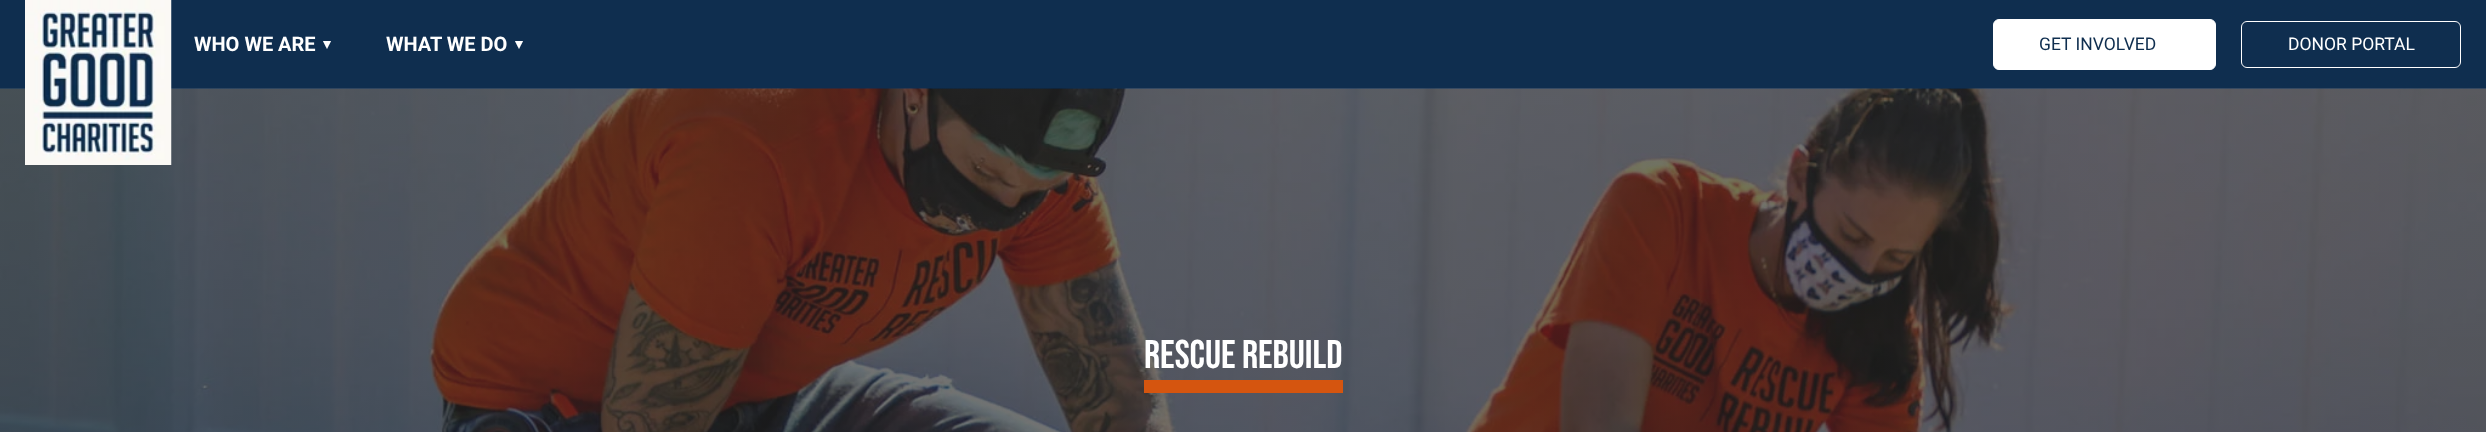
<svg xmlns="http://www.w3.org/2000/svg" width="2486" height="432">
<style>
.a{font:bold 20px Roboto;fill:#fff}
.b{font:bold 15px DejaVu Sans;fill:#fff}
.c{font:17.5px Roboto;fill:#0f2e4f}
.d{font:17.5px Roboto;fill:#fff}
.e{font:40px Bebas Neue;fill:#fff}
</style>
<rect width="100%" height="100%" fill="#0f2e4f"/>
<image href="2.png" x="0" y="88" width="2486" height="344"/>
<image href="1.png" x="25" y="0" width="147" height="165"/>
<rect fill="#fff" stroke="#fff" x="1993.5" y="19.5" width="222" height="50" rx="5.5"/>
<rect fill="none" stroke="#fff" x="2241.5" y="21.5" width="219" height="46" rx="5.5"/>
<path fill="#d5550f" d="M1144 380h199v13H1144z"/>
<text class="a" x="194" y="51">WHO WE ARE</text>
<text class="b" x="323" y="49">▾</text>
<text class="a" x="386" y="51">WHAT WE DO</text>
<text class="b" x="515" y="49">▾</text>
<text class="c" x="2039" y="50">GET INVOLVED</text>
<text class="d" x="2288" y="50">DONOR PORTAL</text>
<text class="e" x="1144" y="368">RESCUE REBUILD</text>
</svg>
